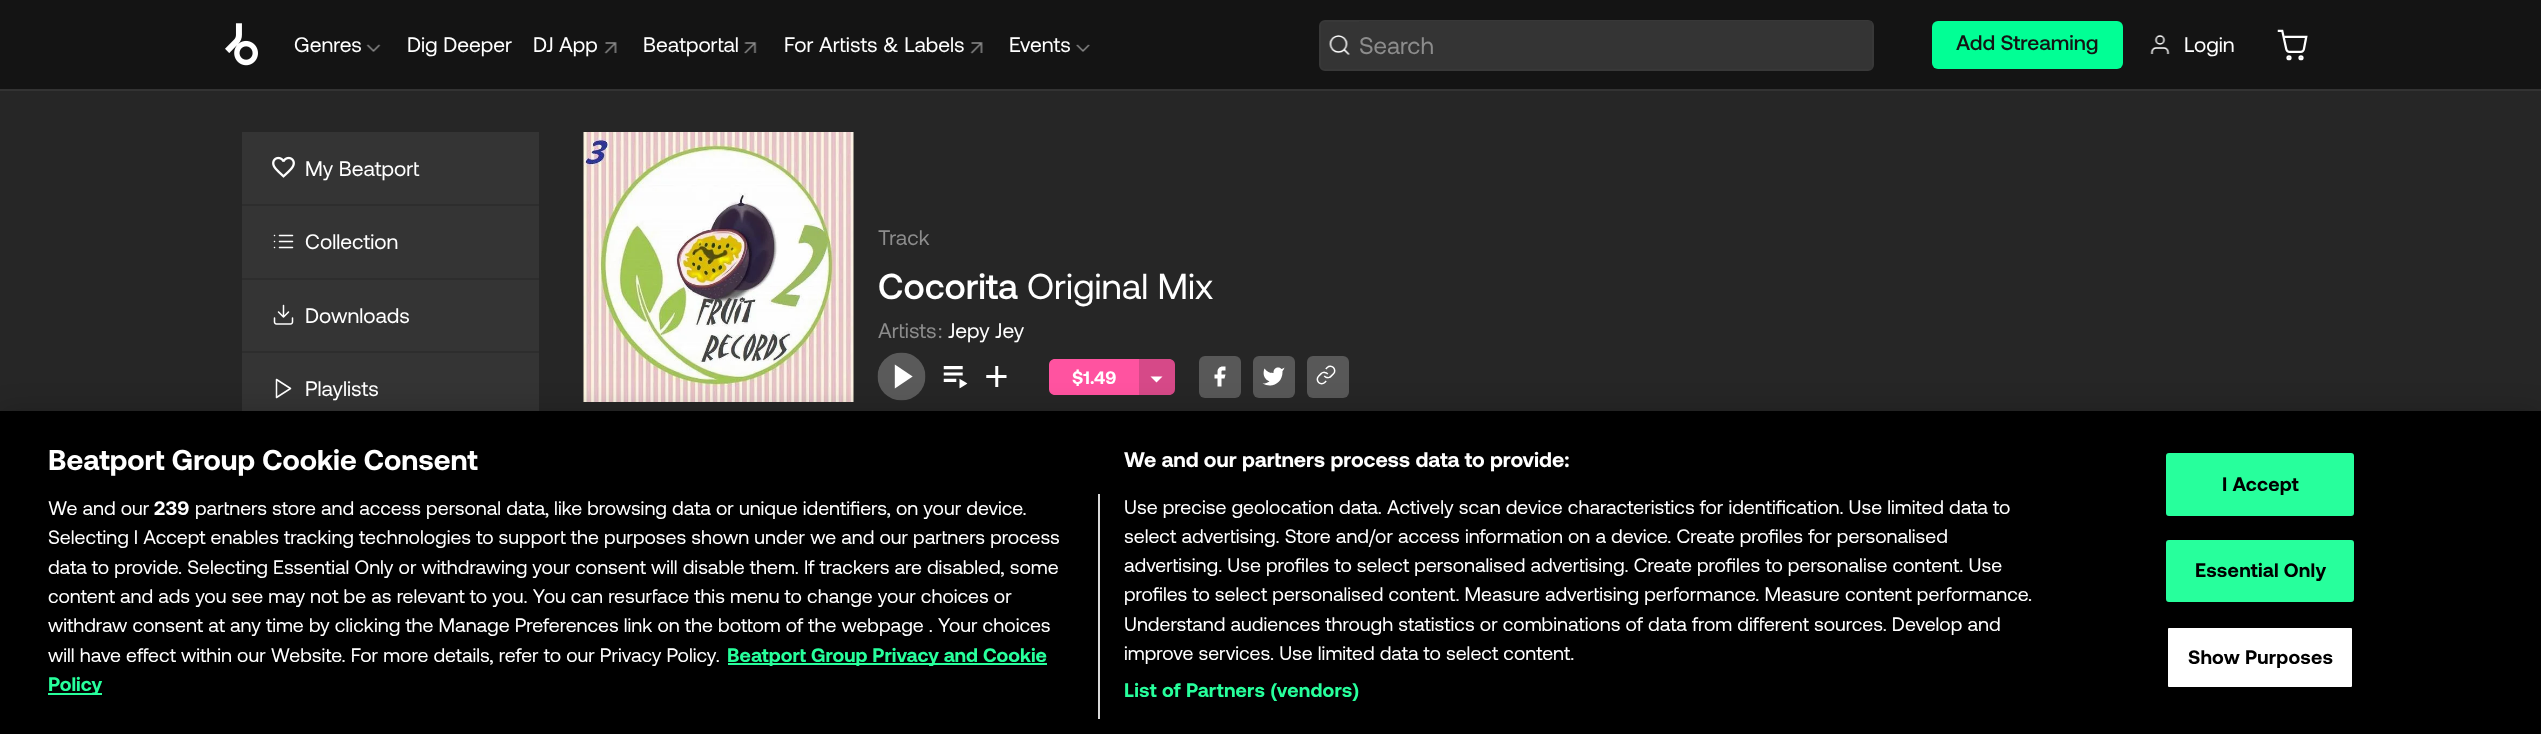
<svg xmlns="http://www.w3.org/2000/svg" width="2541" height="734">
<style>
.a{font:21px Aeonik;fill:#fff}
.b{font:24px Aeonik;fill:#8c8c8c}
.c{font:500 21px Aeonik;fill:#141414}
.d{font:21px Aeonik;fill:#8c8c8c}
.e{font:500 36px Aeonik;fill:#fff}
.f{font:36px Aeonik;fill:#fff}
.g{font:bold 18px Aeonik;fill:#fff}
.h{font:bold 28.75px Aeonik;fill:#fff}
.i{font:bold 21.1px Aeonik;fill:#fff}
.j{font:19.5px Aeonik;fill:#fff}
.k{font:bold 19.5px Aeonik;letter-spacing:0.2px;fill:#27ff9c}
.l{font:bold 19.5px Aeonik;fill:#fff}
.m{font:bold 19.5px Aeonik;fill:#27ff9c}
.n{font:bold 19.5px Aeonik;letter-spacing:0.2px;fill:#000}
</style>
<rect width="100%" height="100%" fill="#262626"/>
<path fill="#141414" d="M0 0h2541v89H0z"/>
<path fill="#333" d="M0 89h2541v2H0z"/>
<image href="1.png" x="225" y="23" width="33" height="43"/>
<image href="2.png" x="366" y="44" width="15" height="8"/>
<image href="3.png" x="604" y="42" width="13" height="12"/>
<image href="4.png" x="744" y="42" width="13" height="12"/>
<image href="3.png" x="970" y="42" width="13" height="12"/>
<image href="5.png" x="1076" y="44" width="14" height="8"/>
<rect fill="#343434" stroke="#383838" stroke-width="2" x="1320" y="21" width="553" height="49" rx="5"/>
<image href="6.png" x="1329" y="35" width="21" height="20"/>
<path fill="#343434" d="M1359 21h513v48H1359z"/>
<rect fill="#01ff95" x="1932" y="21" width="191" height="48" rx="6"/>
<image href="7.png" x="2150" y="35" width="20" height="19"/>
<image href="8.png" x="2277" y="29" width="31" height="32"/>
<path fill="#343434" d="M242 132h297v279H242z"/>
<path fill="#2d2d2d" d="M242 204h297v2H242z"/>
<image href="9.png" x="272" y="156" width="23" height="22"/>
<path fill="#2d2d2d" d="M242 278h297v2H242z"/>
<image href="10.png" x="273" y="234" width="21" height="15"/>
<path fill="#2d2d2d" d="M242 351h297v2H242z"/>
<image href="11.png" x="273" y="304" width="21" height="21"/>
<path fill="none" stroke="#fff" stroke-width="1.5" stroke-linecap="round" stroke-linejoin="round" d="M276.5 379.5l14 9l-14 9z"/>
<image href="12.png" x="583" y="132" width="271" height="270"/>
<image href="13.png" x="877" y="352" width="49" height="49"/>
<image href="14.png" x="943" y="366" width="25" height="23"/>
<image href="15.png" x="986" y="366" width="21" height="21"/>
<path fill="#ff53a0" d="M1055 359h84v36h-84c-3.5 0-6-2.5-6-6v-24c0-3.5 2.5-6 6-6z"/>
<path fill="#d64988" d="M1139 359h30c3.5 0 6 2.5 6 6v24c0 3.5-2.5 6-6 6h-30z"/>
<path fill="#fff" d="M1150.5 376.5h12l-6 6z"/>
<rect fill="#585858" x="1199" y="356" width="42" height="42" rx="6"/>
<image href="16.png" x="1214" y="366" width="12" height="21"/>
<rect fill="#585858" x="1253" y="356" width="42" height="42" rx="6"/>
<image href="17.png" x="1262" y="367" width="23" height="19"/>
<rect fill="#585858" x="1307" y="356" width="42" height="42" rx="6"/>
<image href="18.png" x="1316" y="365" width="20" height="20"/>
<path fill="#00000033" filter="blur(13.5px)" d="M0 411h2541v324H0z"/>
<path fill="#000" d="M0 411h2541v323H0z"/>
<path fill="#d8d8d8" d="M1098 494h2v225H1098z"/>
<path fill="#27ff9c" d="M728 663h319v2H728z"/>
<path fill="#27ff9c" d="M48 693h54v2H48z"/>
<rect fill="#27ff9c" stroke="#27ff9c" stroke-width="2" x="2167" y="454" width="186" height="61" rx="2"/>
<rect fill="#27ff9c" stroke="#27ff9c" stroke-width="2" x="2167" y="541" width="186" height="60" rx="2"/>
<rect fill="#fff" stroke="#000" stroke-width="2" x="2167" y="627" width="186" height="61" rx="2"/>
<text class="a" x="294" y="52">Genres</text>
<text class="a" x="407" y="52">Dig Deeper</text>
<text class="a" x="533" y="52">DJ App</text>
<text class="a" x="643" y="52">Beatportal</text>
<text class="a" x="784" y="52">For Artists &amp; Labels</text>
<text class="a" x="1009" y="52">Events</text>
<text class="b" x="1359" y="54">Search</text>
<text class="c" x="1956" y="50">Add Streaming</text>
<text class="a" x="2184" y="52">Login</text>
<text class="a" x="305" y="176">My Beatport</text>
<text class="a" x="305" y="249">Collection</text>
<text class="a" x="305" y="323">Downloads</text>
<text class="a" x="305" y="396">Playlists</text>
<text class="d" x="878" y="245">Track</text>
<text class="e" x="878" y="299">Cocorita</text>
<text class="f" x="1027" y="299">Original Mix</text>
<text class="d" x="878" y="338">Artists</text>
<text class="d" x="938" y="338">:</text>
<text class="a" x="948" y="338">Jepy Jey</text>
<text class="g" x="1072" y="384">$1.49</text>
<text class="h" x="48" y="470">Beatport Group Cookie Consent</text>
<text class="i" x="1124" y="467">We and our partners process data to provide:</text>
<text class="j" x="1124" y="514">Use precise geolocation data. Actively scan device characteristics for identification. Use limited data to</text>
<text class="j" x="1124" y="543">select advertising. Store and/or access information on a device. Create profiles for personalised</text>
<text class="j" x="1124" y="572">advertising. Use profiles to select personalised advertising. Create profiles to personalise content. Use</text>
<text class="j" x="1124" y="601">profiles to select personalised content. Measure advertising performance. Measure content performance.</text>
<text class="j" x="1124" y="631">Understand audiences through statistics or combinations of data from different sources. Develop and</text>
<text class="j" x="1124" y="660">improve services. Use limited data to select content.</text>
<text class="k" x="1124" y="697">List of Partners (vendors)</text>
<text class="j" x="48" y="515">We and our</text>
<text class="l" x="154" y="515">239</text>
<text class="j" x="195" y="515">partners store and access personal data, like browsing data or unique identifiers, on your device.</text>
<text class="j" x="48" y="544">Selecting I Accept enables tracking technologies to support the purposes shown under we and our partners process</text>
<text class="j" x="48" y="574">data to provide. Selecting Essential Only or withdrawing your consent will disable them. If trackers are disabled, some</text>
<text class="j" x="48" y="603">content and ads you see may not be as relevant to you. You can resurface this menu to change your choices or</text>
<text class="j" x="48" y="632">withdraw consent at any time by clicking the Manage Preferences link on the bottom of the webpage . Your choices</text>
<text class="j" x="48" y="662">will have effect within our Website. For more details, refer to our Privacy Policy.</text>
<text class="m" x="727" y="662">Beatport Group Privacy and Cookie</text>
<text class="m" x="48" y="691">Policy</text>
<text class="n" x="2222" y="491">I Accept</text>
<text class="n" x="2195" y="577">Essential Only</text>
<text class="n" x="2188" y="664">Show Purposes</text>
</svg>
